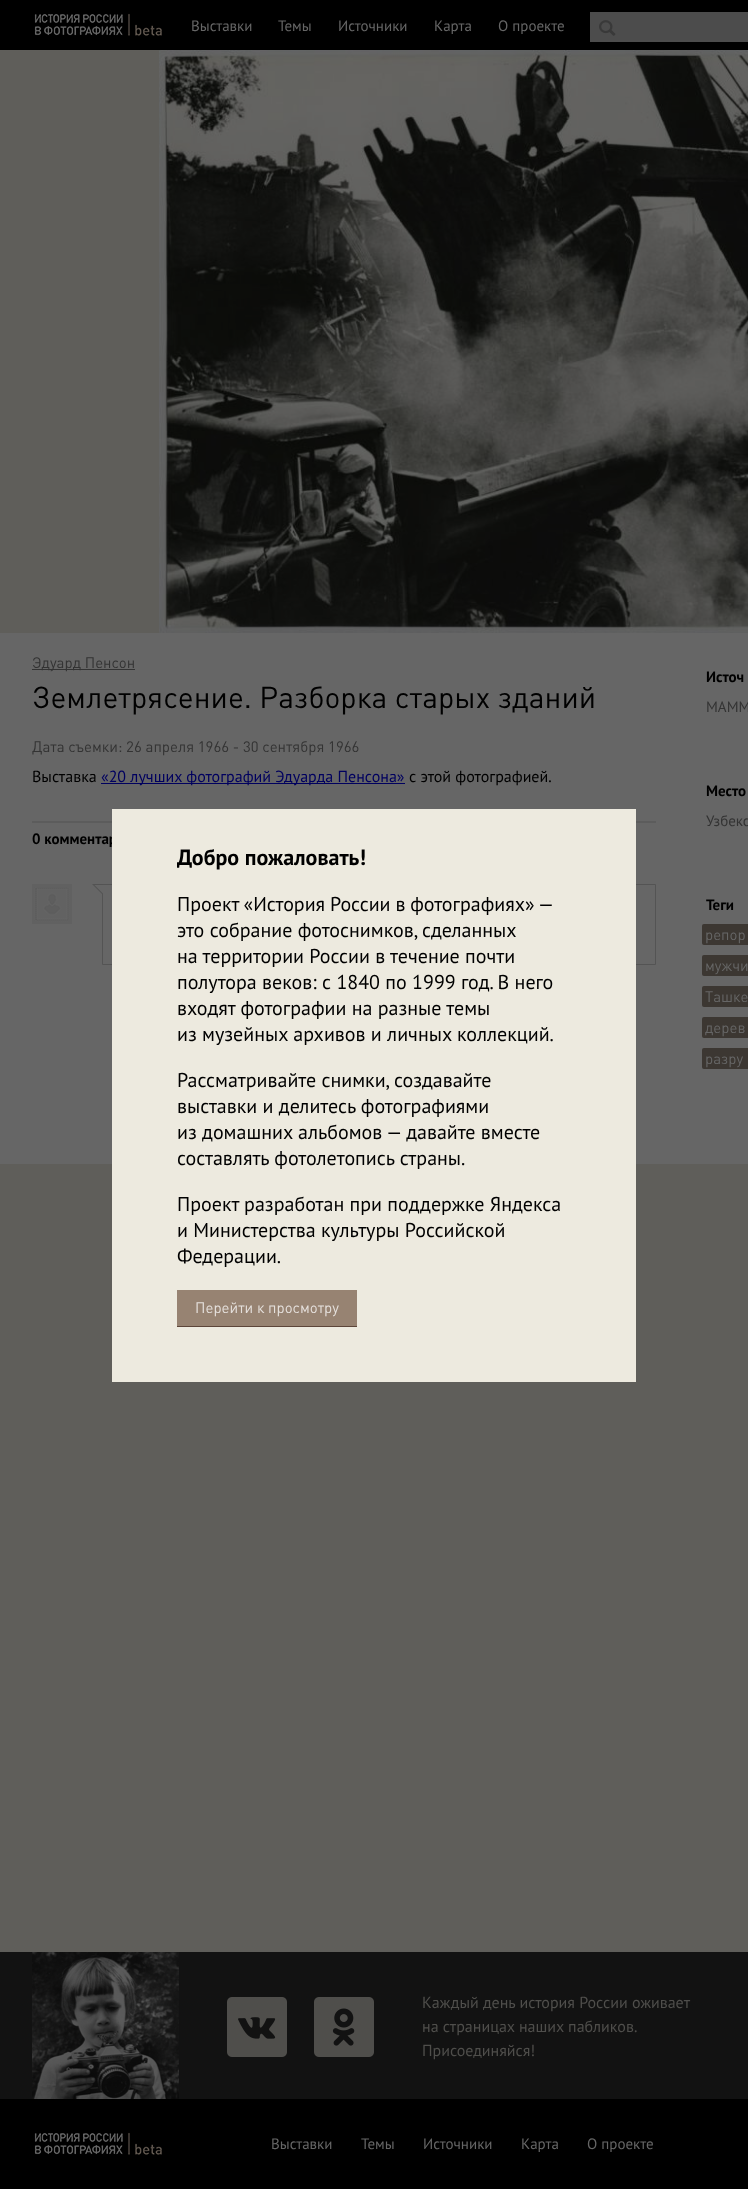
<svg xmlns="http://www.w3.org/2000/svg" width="748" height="2189">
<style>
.a{font:15px PT Sans;fill:#666}
.b{font:15px DIN;fill:#333}
.c{font:30px DIN;fill:#000}
.d{font:16px PT Sans;fill:#000}
.e{font:16px PT Sans;fill:#00005f}
.f{font:bold 15px PT Sans;fill:#000}
.g{font:15px PT Sans;fill:#333}
.h{font:15px DIN;fill:#666}
.i{font:bold 22px PT Sans;fill:#000}
.j{font:20px PT Sans;fill:#000}
.k{font:15px DIN;fill:#e5e0dc}
.l{font:16px PT Sans;fill:#4f4e4b}
</style>
<rect width="100%" height="100%" fill="#5f5e5a"/>
<path fill="#000" d="M0 0h748v50H0z"/>
<image href="1.png" x="34" y="13" width="128" height="23"/>
<path fill="#4c4c4c" d="M590 12h158v30H590z"/>
<image href="2.png" x="599" y="20" width="17" height="16"/>
<image href="3.png" x="159" y="50" width="589" height="583"/>
<path fill="#666" d="M0 633h748v531H0z"/>
<path fill="#333" d="M32 669h103v1H32z"/>
<path fill="#00005f" d="M101 783h304v1H101z"/>
<path fill="#5c5c5c" d="M32 821h624v2H32z"/>
<image href="4.png" x="32" y="884" width="40" height="40"/>
<path fill="none" stroke="#545454" d="M102.5 884.5h553v80H102.5z"/>
<image href="5.png" x="92" y="884" width="11" height="10"/>
<rect fill="#3c3732" x="702" y="924" width="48" height="21" rx="2"/>
<rect fill="#3c3732" x="702" y="955" width="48" height="21" rx="2"/>
<rect fill="#3c3732" x="702" y="986" width="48" height="21" rx="2"/>
<rect fill="#3c3732" x="702" y="1017" width="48" height="21" rx="2"/>
<rect fill="#3c3732" x="702" y="1048" width="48" height="21" rx="2"/>
<path fill="#121212" d="M0 1952h748v147H0z"/>
<image href="6.png" x="32" y="1952" width="147" height="147"/>
<image href="7.png" x="227" y="1997" width="60" height="60"/>
<image href="8.png" x="314" y="1997" width="60" height="60"/>
<path fill="#000" d="M0 2099h748v90H0z"/>
<image href="1.png" x="34" y="2132" width="128" height="23"/>
<text class="a" x="191" y="31">Выставки</text>
<text class="a" x="278" y="31">Темы</text>
<text class="a" x="338" y="31">Источники</text>
<text class="a" x="434" y="31">Карта</text>
<text class="a" x="498" y="31">О проекте</text>
<text class="b" x="32" y="668">Эдуард Пенсон</text>
<text class="c" x="32" y="708">Землетрясение. Разборка старых зданий</text>
<text class="b" x="32" y="752">Дата съемки: 26 апреля 1966 - 30 сентября 1966</text>
<text class="d" x="32" y="782">Выставка</text>
<text class="e" x="101" y="782">«20 лучших фотографий Эдуарда Пенсона»</text>
<text class="d" x="409" y="782">с этой фотографией.</text>
<text class="f" x="32" y="844">0 комментар</text>
<text class="f" x="706" y="682">Источ</text>
<text class="g" x="706" y="712">МАММ</text>
<text class="f" x="706" y="796">Место</text>
<text class="g" x="706" y="826">Узбекс</text>
<text class="f" x="706" y="910">Теги</text>
<text class="h" x="705" y="940">репор</text>
<text class="h" x="705" y="971">мужчи</text>
<text class="h" x="705" y="1002">Ташке</text>
<text class="h" x="705" y="1033">дерев</text>
<text class="h" x="705" y="1064">разру</text>
<path fill="#edeadf" d="M112 809h524v573H112z"/>
<text class="i" x="177" y="865">Добро пожаловать!</text>
<text class="j" x="177" y="911" word-spacing="-0.5">Проект «История России в фотографиях» —</text>
<text class="j" x="177" y="937">это собрание фотоснимков, сделанных</text>
<text class="j" x="177" y="963">на территории России в течение почти</text>
<text class="j" x="177" y="989">полутора веков: с 1840 по 1999 год. В него</text>
<text class="j" x="177" y="1015">входят фотографии на разные темы</text>
<text class="j" x="177" y="1041">из музейных архивов и личных коллекций.</text>
<text class="j" x="177" y="1087">Рассматривайте снимки, создавайте</text>
<text class="j" x="177" y="1113">выставки и делитесь фотографиями</text>
<text class="j" x="177" y="1139">из домашних альбомов — давайте вместе</text>
<text class="j" x="177" y="1165">составлять фотолетопись страны.</text>
<text class="j" x="177" y="1211">Проект разработан при поддержке Яндекса</text>
<text class="j" x="177" y="1237">и Министерства культуры Российской</text>
<text class="j" x="177" y="1263">Федерации.</text>
<path fill="#978372" d="M177 1290h180v36H177z"/>
<path fill="#5c4539" d="M177 1326h180v1H177z"/>
<text class="k" x="195" y="1313">Перейти к просмотру</text>
<text class="l" x="422" y="2008">Каждый день история России оживает</text>
<text class="l" x="422" y="2032">на страницах наших пабликов.</text>
<text class="l" x="422" y="2056">Присоединяйся!</text>
<text class="a" x="271" y="2149">Выставки</text>
<text class="a" x="361" y="2149">Темы</text>
<text class="a" x="423" y="2149">Источники</text>
<text class="a" x="521" y="2149">Карта</text>
<text class="a" x="587" y="2149">О проекте</text>
</svg>
